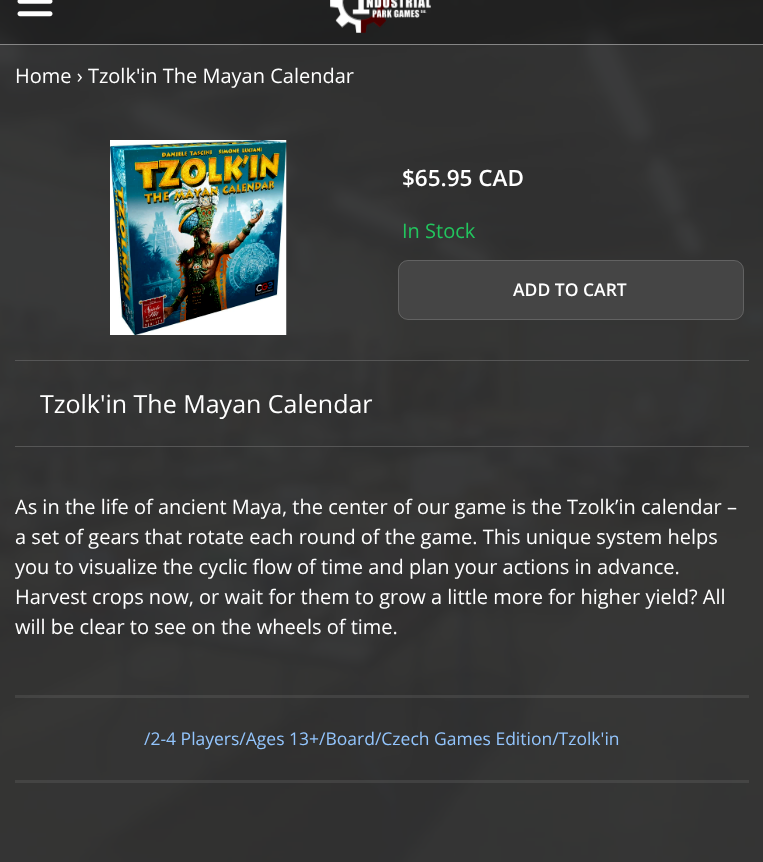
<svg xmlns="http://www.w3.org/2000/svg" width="763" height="862">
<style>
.a{font:20px Open Sans;fill:#fff}
.b{font:600 22.5px Open Sans;fill:#fff}
.c{font:20px Open Sans;fill:#22c55e}
.d{font:600 17.5px Open Sans;fill:#fff}
.e{font:25px Open Sans;fill:#fff}
.f{font:17.5px Open Sans;fill:#93c5fd}
</style>
<rect width="100%" height="100%" fill="#fff"/>
<image href="1.png" x="0" y="0" width="763" height="862"/>
<path fill="#222222e6" d="M0 0h763v44H0z"/>
<path fill="#868686" d="M0 44h763v1H0z"/>
<image href="2.png" x="17" y="0" width="36" height="17"/>
<image href="3.png" x="330" y="0" width="101" height="33"/>
<image href="4.png" x="110" y="140" width="177" height="195"/>
<rect fill="#454545" x="398" y="260" width="346" height="60" rx="10"/>
<rect fill="none" stroke="#d9d9d933" x="398.5" y="260.5" width="345" height="59" rx="9.5"/>
<path fill="#565656" d="M15 360h734v1H15z"/>
<path fill="#565656" d="M15 446h734v1H15z"/>
<path fill="#d9d9d91a" d="M15 695h368v3H15z"/>
<path fill="#d9d9d91a" d="M383 695h366v3H383z"/>
<path fill="#d9d9d91a" d="M15 780h368v3H15z"/>
<path fill="#d9d9d91a" d="M383 780h366v3H383z"/>
<text class="a" x="15" y="83">Home › Tzolk'in The Mayan Calendar</text>
<text class="b" x="402" y="186">$65.95 CAD</text>
<text class="c" x="402" y="238">In Stock</text>
<text class="d" x="513" y="296">ADD TO CART</text>
<text class="e" x="40" y="413">Tzolk'in The Mayan Calendar</text>
<text class="a" x="15" y="514">As in the life of ancient Maya, the center of our game is the Tzolk’in calendar –</text>
<text class="a" x="15" y="544">a set of gears that rotate each round of the game. This unique system helps</text>
<text class="a" x="15" y="574">you to visualize the cyclic flow of time and plan your actions in advance.</text>
<text class="a" x="15" y="604">Harvest crops now, or wait for them to grow a little more for higher yield? All</text>
<text class="a" x="15" y="634">will be clear to see on the wheels of time.</text>
<text class="f" x="144" y="745">/2-4 Players/Ages 13+/Board/Czech Games Edition/Tzolk'in</text>
</svg>
